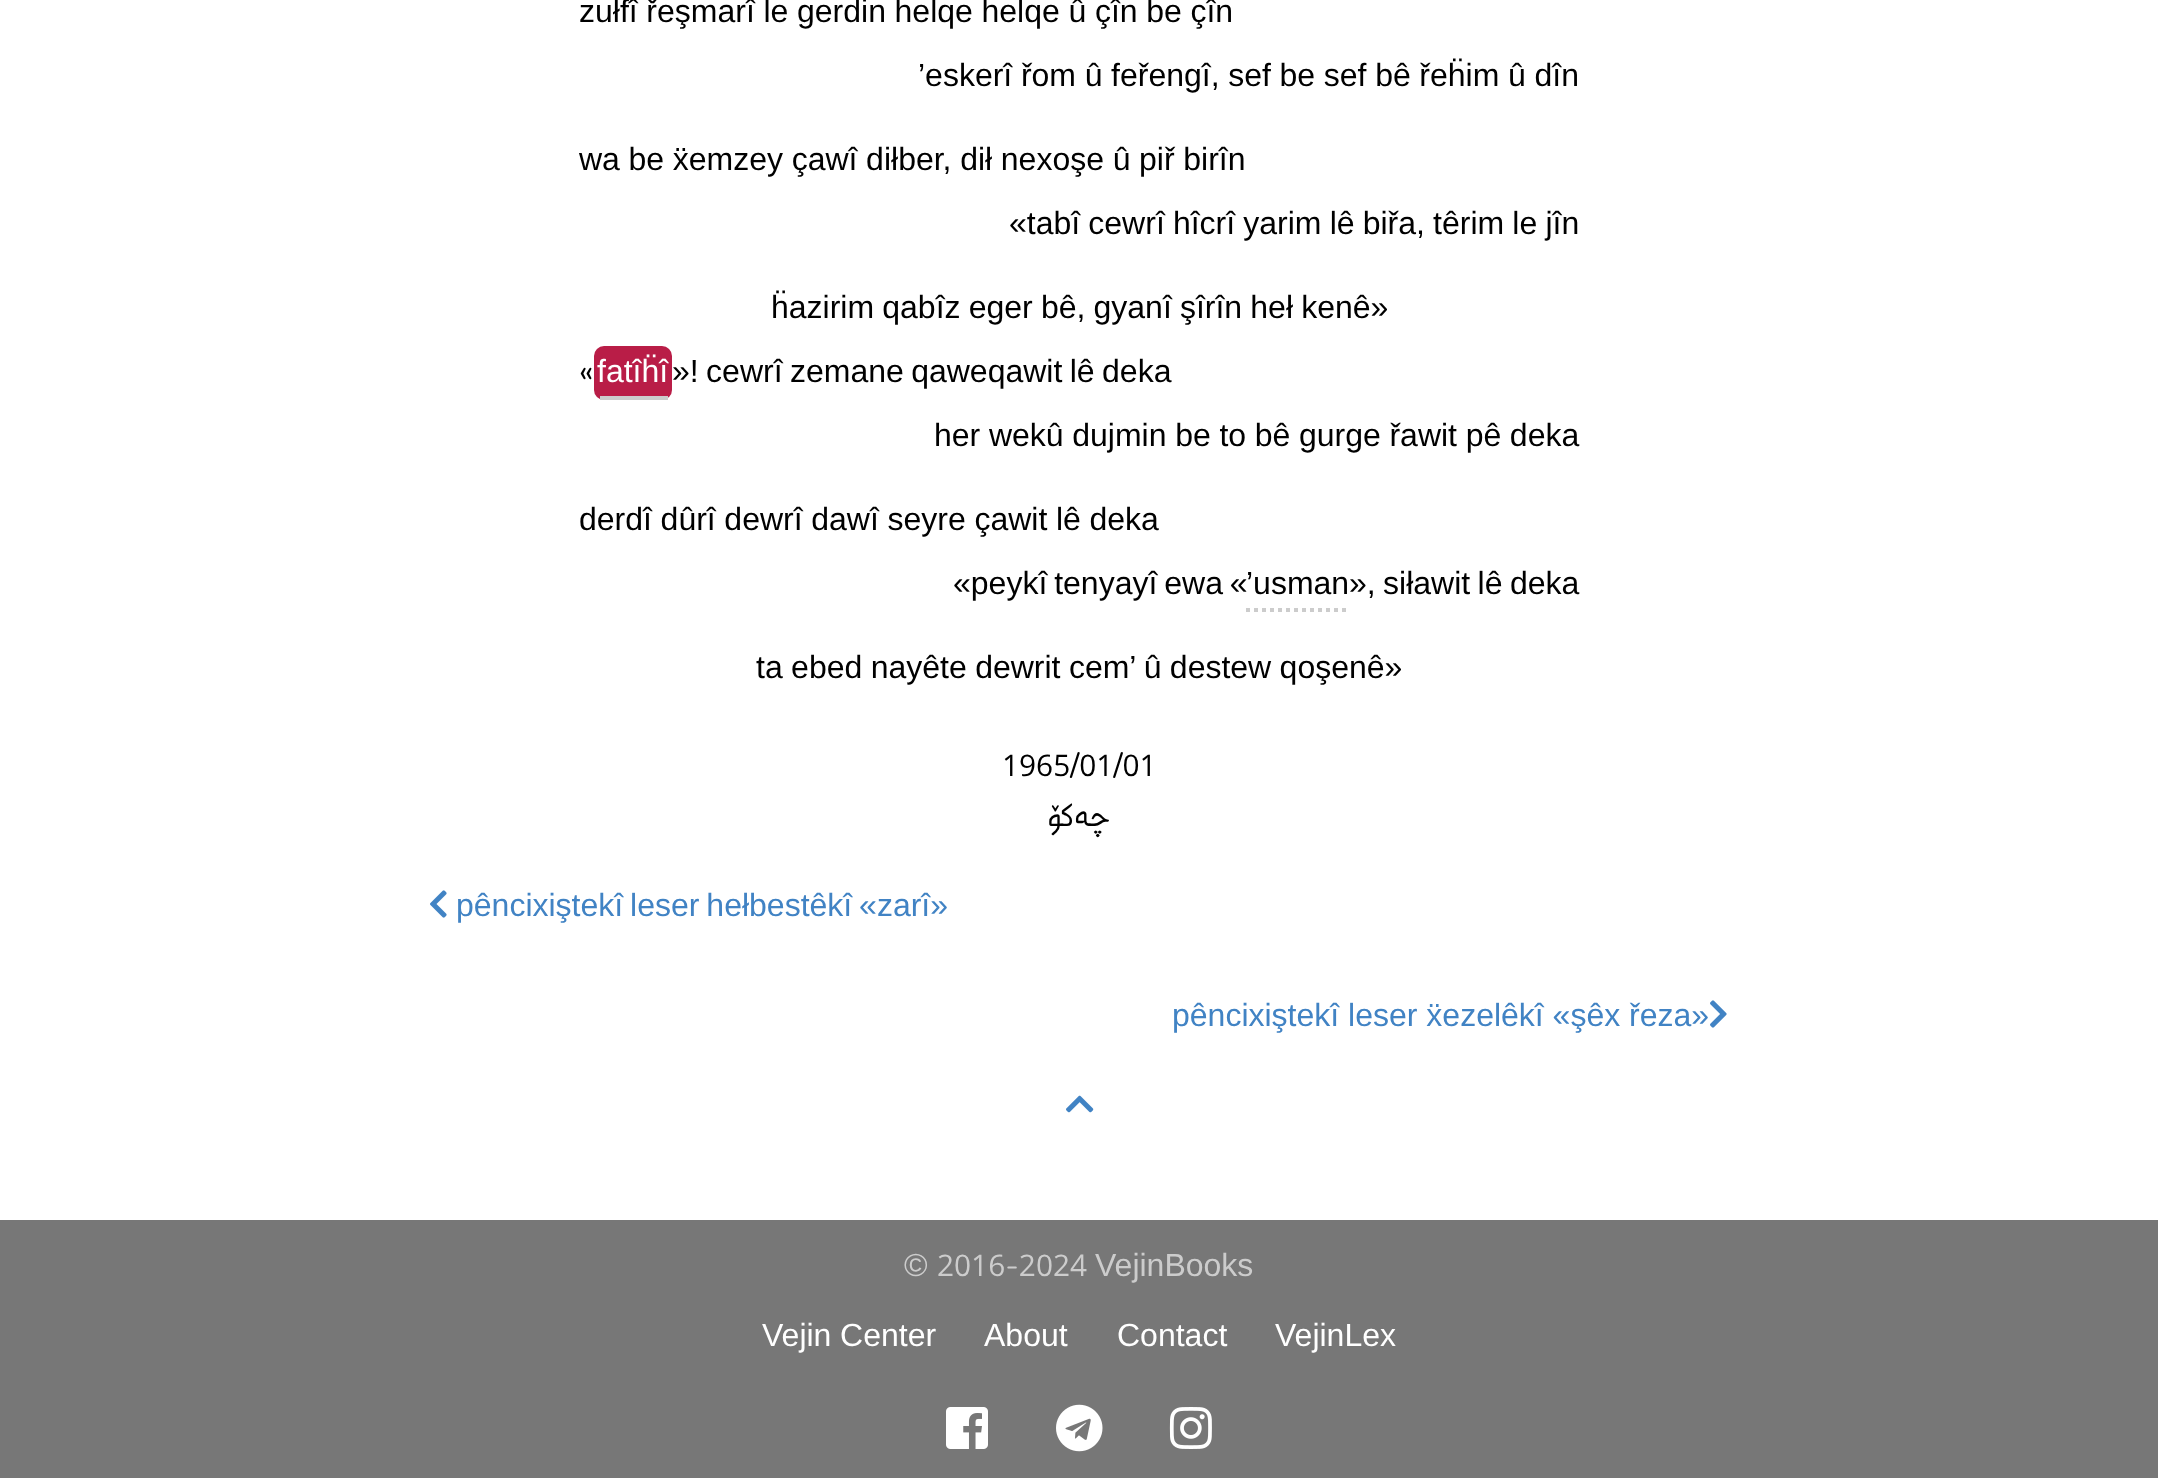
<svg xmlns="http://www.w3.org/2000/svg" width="2158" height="1478">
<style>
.a{font:32px Liberation Sans;fill:#000}
.b{font:32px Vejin;fill:#000}
.c{font:32px Liberation Sans;fill:#fff}
.d{font:32px Vejin;direction:rtl;fill:#000}
.e{font:32px Liberation Sans;fill:#4183c4}
.f{font:32px Liberation Sans;fill:#ccc}
.g{font:32px Vejin;fill:#ccc}
</style>
<rect width="100%" height="100%" fill="#fff"/>
<rect fill="#b91d47" x="594" y="346" width="78" height="54" rx="10"/>
<path fill="#ccc" d="M600 396h68v4H600z"/>
<path fill="none" stroke="#ccc" stroke-width="4" stroke-dasharray="4 4" d="M1246 610h102"/>
<image href="1.png" x="430" y="890" width="17" height="28"/>
<image href="2.png" x="1710" y="1000" width="17" height="28"/>
<image href="3.png" x="1066" y="1095" width="28" height="18"/>
<path fill="#777" d="M0 1220h2158v258H0z"/>
<image href="4.png" x="946" y="1407" width="42" height="42"/>
<image href="5.png" x="1056" y="1404" width="47" height="48"/>
<image href="6.png" x="1169" y="1407" width="43" height="42"/>
<text class="a" x="579" y="22" word-spacing="-0.25">zułfî řeşmarî le gerdin ḧelqe ḧelqe û çîn be çîn</text>
<text class="a" x="918" y="86" word-spacing="-0.25">’eskerî řom û feřengî, sef be sef bê řeḧim û dîn</text>
<text class="a" x="579" y="170" word-spacing="-0.25">wa be ẍemzey çawî diłber, dił nexoşe û piř birîn</text>
<text class="a" x="1009" y="234" word-spacing="-0.75">«tabî cewrî hîcrî yarim lê biřa, têrim le jîn</text>
<text class="a" x="771" y="318" word-spacing="-0.75">ḧazirim qabîz eger bê, gyanî şîrîn heł kenê»</text>
<text class="b" x="579" y="382">«</text>
<text class="c" x="597" y="382">fatîḧî</text>
<text class="a" x="672" y="382" word-spacing="-1.5">»! cewrî zemane qaweqawit lê deka</text>
<text class="a" x="934" y="446" word-spacing="-0.25">her wekû dujmin be to bê gurge řawit pê deka</text>
<text class="a" x="579" y="530" word-spacing="-0.25">derdî dûrî dewrî dawî seyre çawit lê deka</text>
<text class="a" x="953" y="594" word-spacing="-2">«peykî tenyayî ewa «</text>
<text class="a" x="1246" y="594">’usman</text>
<text class="a" x="1349" y="594" word-spacing="-1.5">», siławit lê deka</text>
<text class="a" x="756" y="678" word-spacing="-0.5">ta ebed nayête dewrit cem’ û destew qoşenê»</text>
<text class="b" x="1002" y="776">1965/01/01</text>
<text class="d" x="1111" y="826">چەکۆ</text>
<text class="e" x="456" y="916" word-spacing="-2">pêncixiştekî leser hełbestêkî «zarî»</text>
<text class="e" x="1172" y="1026">pêncixiştekî leser ẍezelêkî «şêx řeza»</text>
<text class="f" x="904" y="1276">©</text>
<text class="g" x="937" y="1276">2016-2024</text>
<text class="f" x="1095" y="1276">VejinBooks</text>
<text class="c" x="762" y="1346" word-spacing="-0.25">Vejin Center</text>
<text class="c" x="984" y="1346">About</text>
<text class="c" x="1117" y="1346">Contact</text>
<text class="c" x="1275" y="1346">VejinLex</text>
</svg>
